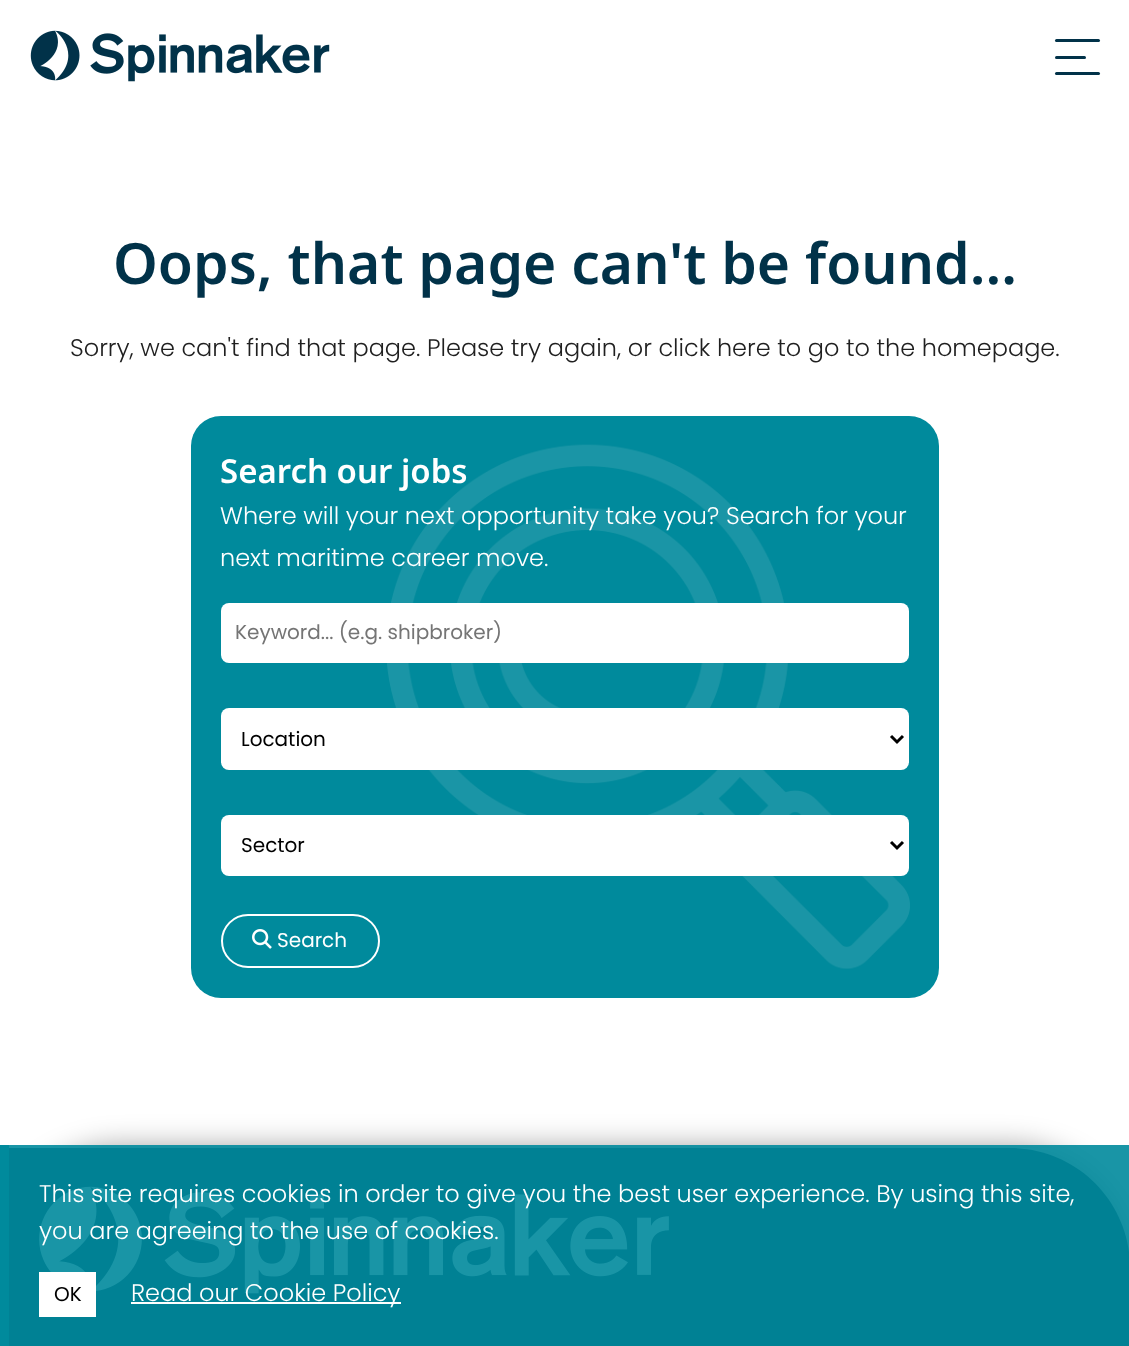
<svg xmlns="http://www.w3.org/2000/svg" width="1129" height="1346">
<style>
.a{font:600 57px Noto Sans;fill:#013249}
.b{font:300 24px Poppins;fill:#202020}
.c{font:600 33px Noto Sans;fill:#fff}
.d{font:300 24px Poppins;fill:#fff}
.e{font:20px Poppins;fill:#757575}
.f{font:20px Poppins;fill:#000}
.g{font:20px Poppins;fill:#fff}
</style>
<rect width="100%" height="100%" fill="#fff"/>
<image href="1.png" x="30" y="30" width="300" height="52"/>
<rect fill="#013249" x="1055" y="39" width="45" height="3" rx="1.5"/>
<rect fill="#013249" x="1055" y="56" width="31" height="3" rx="1.5"/>
<rect fill="#013249" x="1055" y="72" width="45" height="3" rx="1.5"/>
<rect fill="#008a9c" x="191" y="416" width="748" height="582" rx="30"/>
<image href="2.png" x="387" y="444" width="523" height="525"/>
<rect fill="#fff" x="221" y="603" width="688" height="60" rx="8"/>
<rect fill="#fff" x="221" y="708" width="688" height="62" rx="8"/>
<path fill="none" stroke="#000" stroke-width="3" d="M891 736l6 6l6-6"/>
<rect fill="#fff" x="221" y="815" width="688" height="61" rx="8"/>
<path fill="none" stroke="#000" stroke-width="3" d="M891 842l6 6l6-6"/>
<rect fill="none" stroke="#fff" stroke-width="2" x="222" y="915" width="157" height="52" rx="26"/>
<image href="3.png" x="252" y="929" width="20" height="20"/>
<rect fill="#00000066" filter="blur(15px)" y="1148" width="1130" height="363" rx="120"/>
<path fill="#013249" d="M0 1148h1010c66.5 0 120 53.5 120 120v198h-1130z"/>
<image href="4.png" x="39" y="1186" width="630" height="108"/>
<path fill="#008a9ce6" d="M9 1145h1120v201H9z"/>
<path fill="#008a9c" d="M0 1145h9v201H0z"/>
<path fill="#fff" d="M39 1272h57v45H39z"/>
<path fill="#fff" d="M131 1302h270v2H131z"/>
<text class="a" x="113" y="284">Oops, that page can't be found...</text>
<text class="b" x="70" y="356">Sorry, we can't find that page. Please try again, or click here to go to the homepage.</text>
<text class="c" x="220" y="483">Search our jobs</text>
<text class="d" x="220" y="524">Where will your next opportunity take you? Search for your</text>
<text class="d" x="220" y="566">next maritime career move.</text>
<text class="e" x="235" y="639">Keyword... (e.g. shipbroker)</text>
<text class="f" x="241" y="746">Location</text>
<text class="f" x="241" y="852">Sector</text>
<text class="g" x="277" y="947">Search</text>
<text class="d" x="39" y="1202">This site requires cookies in order to give you the best user experience. By using this site,</text>
<text class="d" x="39" y="1239">you are agreeing to the use of cookies.</text>
<text class="f" x="54" y="1301">OK</text>
<text class="d" x="131" y="1301">Read our Cookie Policy</text>
</svg>
